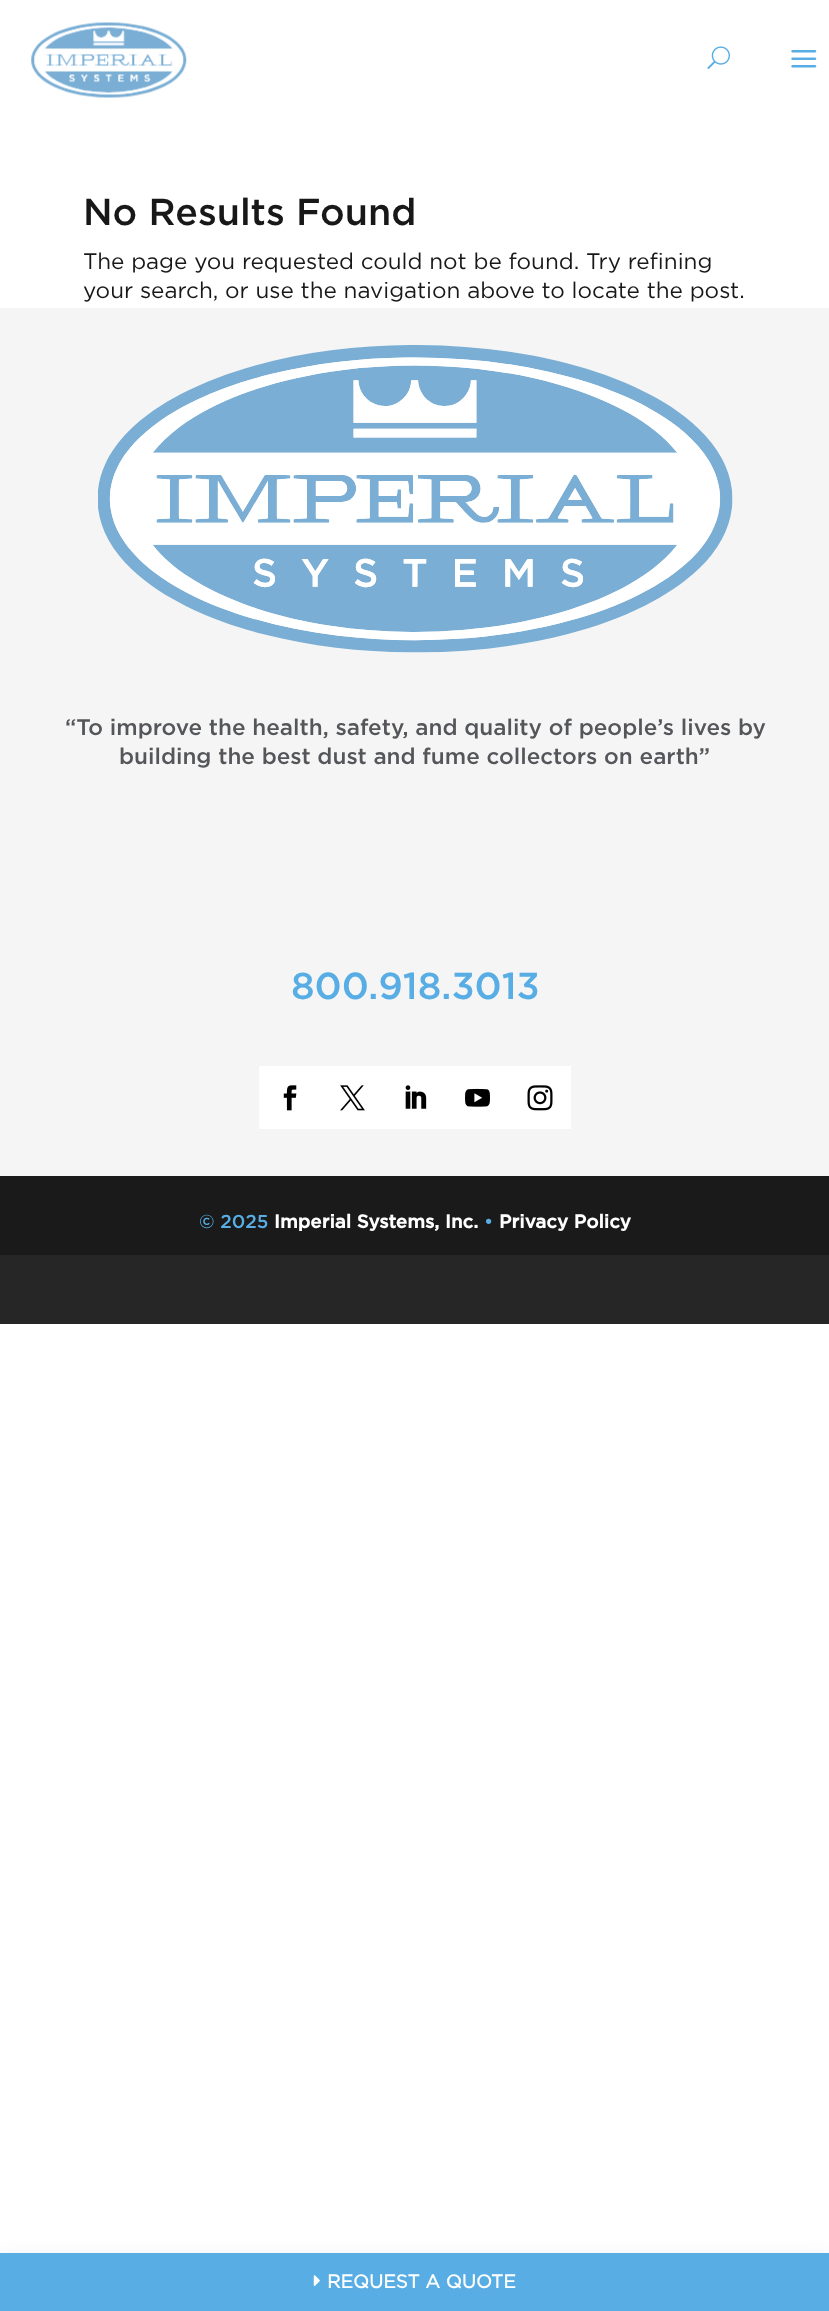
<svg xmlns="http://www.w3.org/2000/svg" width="829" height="2311">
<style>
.a{font:500 37.5px Gotham;fill:#181818}
.b{font:22.5px Gotham;fill:#181818}
.c{font:500 22.5px Gotham;fill:#54565a}
.d{font:500 37.5px Gotham;fill:#58aee4}
.e{font:500 18.75px Gotham;fill:#58aee4}
.f{font:bold 18.75px Gotham;fill:#fff}
.g{font:bold 18.75px 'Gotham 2';fill:#fff}
</style>
<rect width="100%" height="100%" fill="#fff"/>
<path fill="#262626" d="M0 1255h829v69H0z"/>
<path fill="#f5f5f5" d="M0 308h829v868H0z"/>
<image href="1.png" x="98" y="345" width="635" height="308"/>
<path fill="#fff" d="M259 1066h312v63H259z"/>
<image href="2.png" x="283" y="1085" width="14" height="26"/>
<image href="3.png" x="340" y="1085" width="25" height="26"/>
<image href="4.png" x="405" y="1085" width="22" height="24"/>
<image href="5.png" x="465" y="1088" width="25" height="19"/>
<image href="6.png" x="527" y="1085" width="26" height="26"/>
<path fill="#1a1a1a" d="M0 1176h829v79H0z"/>
<image href="7.png" x="31" y="22" width="156" height="76"/>
<image href="8.png" x="707" y="46" width="23" height="23"/>
<image href="9.png" x="791" y="50" width="26" height="18"/>
<path fill="#00000030" filter="blur(12.5px)" d="M0 2265h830v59H0z"/>
<path fill="#58aee4" d="M0 2253h829v58H0z"/>
<image href="10.png" x="313" y="2275" width="7" height="11"/>
<text class="a" x="83" y="225">No Results Found</text>
<text class="b" x="83" y="269">The page you requested could not be found. Try refining</text>
<text class="b" x="83" y="298">your search, or use the navigation above to locate the post.</text>
<text class="c" x="65" y="735">“To improve the health, safety, and quality of people’s lives by</text>
<text class="c" x="119" y="764">building the best dust and fume collectors on earth”</text>
<text class="d" x="291" y="999">800.918.3013</text>
<text class="e" x="199" y="1228">© 2025</text>
<text class="f" x="274" y="1228">Imperial Systems, Inc.</text>
<text class="e" x="484" y="1228">•</text>
<text class="f" x="499" y="1228">Privacy Policy</text>
<text class="g" x="327" y="2288">REQUEST A QUOTE</text>
</svg>
